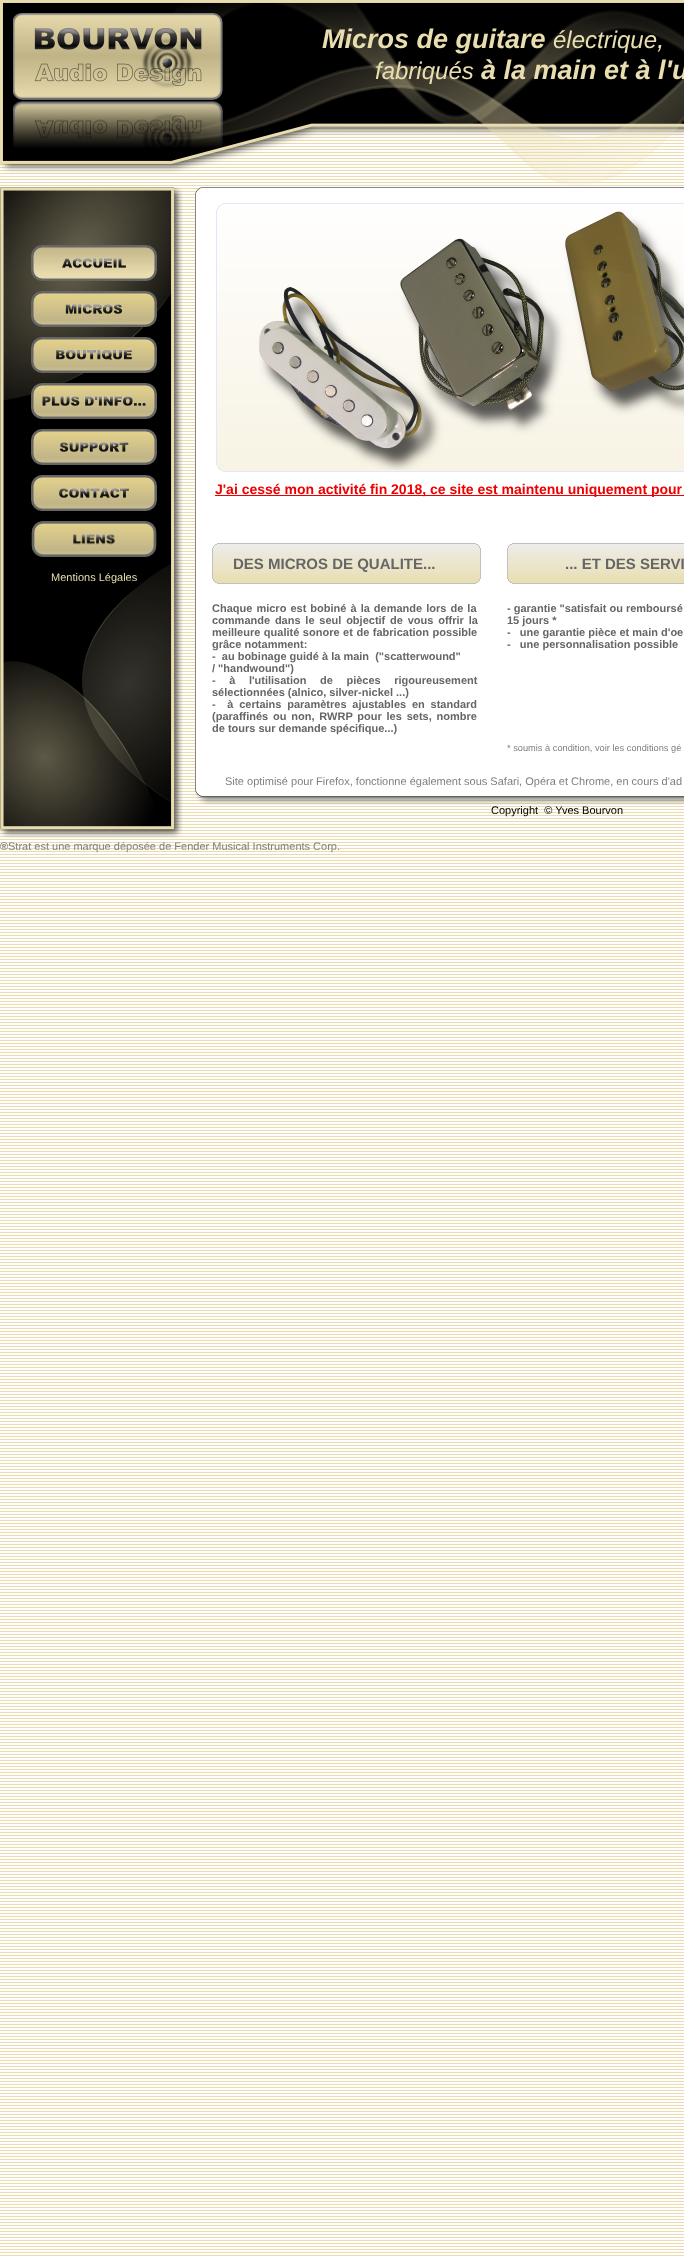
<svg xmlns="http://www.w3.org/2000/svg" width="684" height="2258">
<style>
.a{font:italic bold 27px Liberation Sans;fill:#e9deaf}
.b{font:italic 24px Liberation Sans;fill:#e9deaf}
.c{font:italic 27px Liberation Sans;fill:#e9deaf}
.d{font:bold 14px Liberation Sans;fill:#e00}
.e{font:bold 15px Liberation Sans;fill:#666}
.f{font:11px Liberation Sans;fill:#e9deaf}
.g{font:bold 11px Liberation Sans;fill:#666}
.h{font:9.25px Liberation Sans;fill:#7f7f7f}
.i{font:11px Liberation Sans;fill:#7f7f7f}
.j{font:11px Liberation Sans;fill:#000}
.k{font:11px Liberation Sans;fill:#666}
</style>
<rect width="100%" height="100%" fill="#fff"/>
<image href="1.png" x="0" y="126" width="684" height="2132"/>
<image href="2.png" x="0" y="0" width="684" height="185"/>
<image href="3.png" x="13" y="13" width="210" height="135"/>
<image href="4.png" x="0" y="187" width="183" height="651"/>
<image href="5.png" x="195" y="187" width="489" height="618"/>
<image href="6.png" x="216" y="203" width="468" height="269"/>
<image href="7.png" x="31" y="245" width="126" height="36"/>
<image href="8.png" x="259" y="211" width="425" height="259"/>
<image href="9.png" x="31" y="291" width="126" height="36"/>
<image href="10.png" x="31" y="337" width="126" height="36"/>
<image href="11.png" x="31" y="383" width="126" height="36"/>
<image href="12.png" x="31" y="429" width="126" height="36"/>
<image href="13.png" x="31" y="475" width="126" height="36"/>
<path fill="#e00" d="M215 495h469v1H215z"/>
<image href="14.png" x="31" y="521" width="126" height="36"/>
<image href="15.png" x="31" y="521" width="126" height="36"/>
<image href="16.png" x="212" y="543" width="269" height="41"/>
<image href="17.png" x="507" y="543" width="177" height="41"/>
<text class="a" x="322" y="48">Micros de guitare</text>
<text class="b" x="553" y="48">électrique</text>
<text class="c" x="657" y="48">,</text>
<text class="b" x="375" y="79">fabriqués</text>
<text class="a" x="481" y="79">à la main et à l'u</text>
<text class="d" x="215" y="494">J'ai cessé mon activité fin 2018, ce site est maintenu uniquement pour</text>
<text class="e" x="233" y="569">DES MICROS DE QUALITE...</text>
<text class="e" x="565" y="569">... ET DES SERVI</text>
<text class="f" x="51" y="581">Mentions Légales</text>
<text class="g" x="212" y="612" word-spacing="1">Chaque micro est bobiné à la demande lors de la</text>
<text class="g" x="212" y="624" word-spacing="1.75">commande dans le seul objectif de vous offrir la</text>
<text class="g" x="212" y="636" word-spacing="0.5">meilleure qualité sonore et de fabrication possible</text>
<text class="g" x="212" y="648">grâce notamment:</text>
<text class="g" xml:space="preserve" x="212" y="660">-  au bobinage guidé à la main  ("scatterwound"</text>
<text class="g" x="212" y="672">/ "handwound")</text>
<text class="g" x="212" y="684" word-spacing="10.5">- à l'utilisation de pièces rigoureusement</text>
<text class="g" x="212" y="696">sélectionnées (alnico, silver-nickel ...)</text>
<text class="g" xml:space="preserve" x="212" y="708" word-spacing="2.75">-  à certains paramètres ajustables en standard</text>
<text class="g" x="212" y="720" word-spacing="1.75">(paraffinés ou non, RWRP pour les sets, nombre</text>
<text class="g" x="212" y="732">de tours sur demande spécifique...)</text>
<text class="g" x="507" y="612">- garantie "satisfait ou remboursé</text>
<text class="g" x="507" y="624">15 jours *</text>
<text class="g" xml:space="preserve" x="507" y="636">-   une garantie pièce et main d'oe</text>
<text class="g" xml:space="preserve" x="507" y="648">-   une personnalisation possible</text>
<text class="h" x="507" y="751">* soumis à condition, voir les conditions gé</text>
<text class="i" x="225" y="785">Site optimisé pour Firefox, fonctionne également sous Safari, Opéra et Chrome, en cours d'ad</text>
<text class="j" xml:space="preserve" x="491" y="814">Copyright  © Yves Bourvon</text>
<text class="k" x="0" y="850">®</text>
<text class="i" x="8" y="850">Strat est une marque déposée de Fender Musical Instruments Corp.</text>
</svg>
